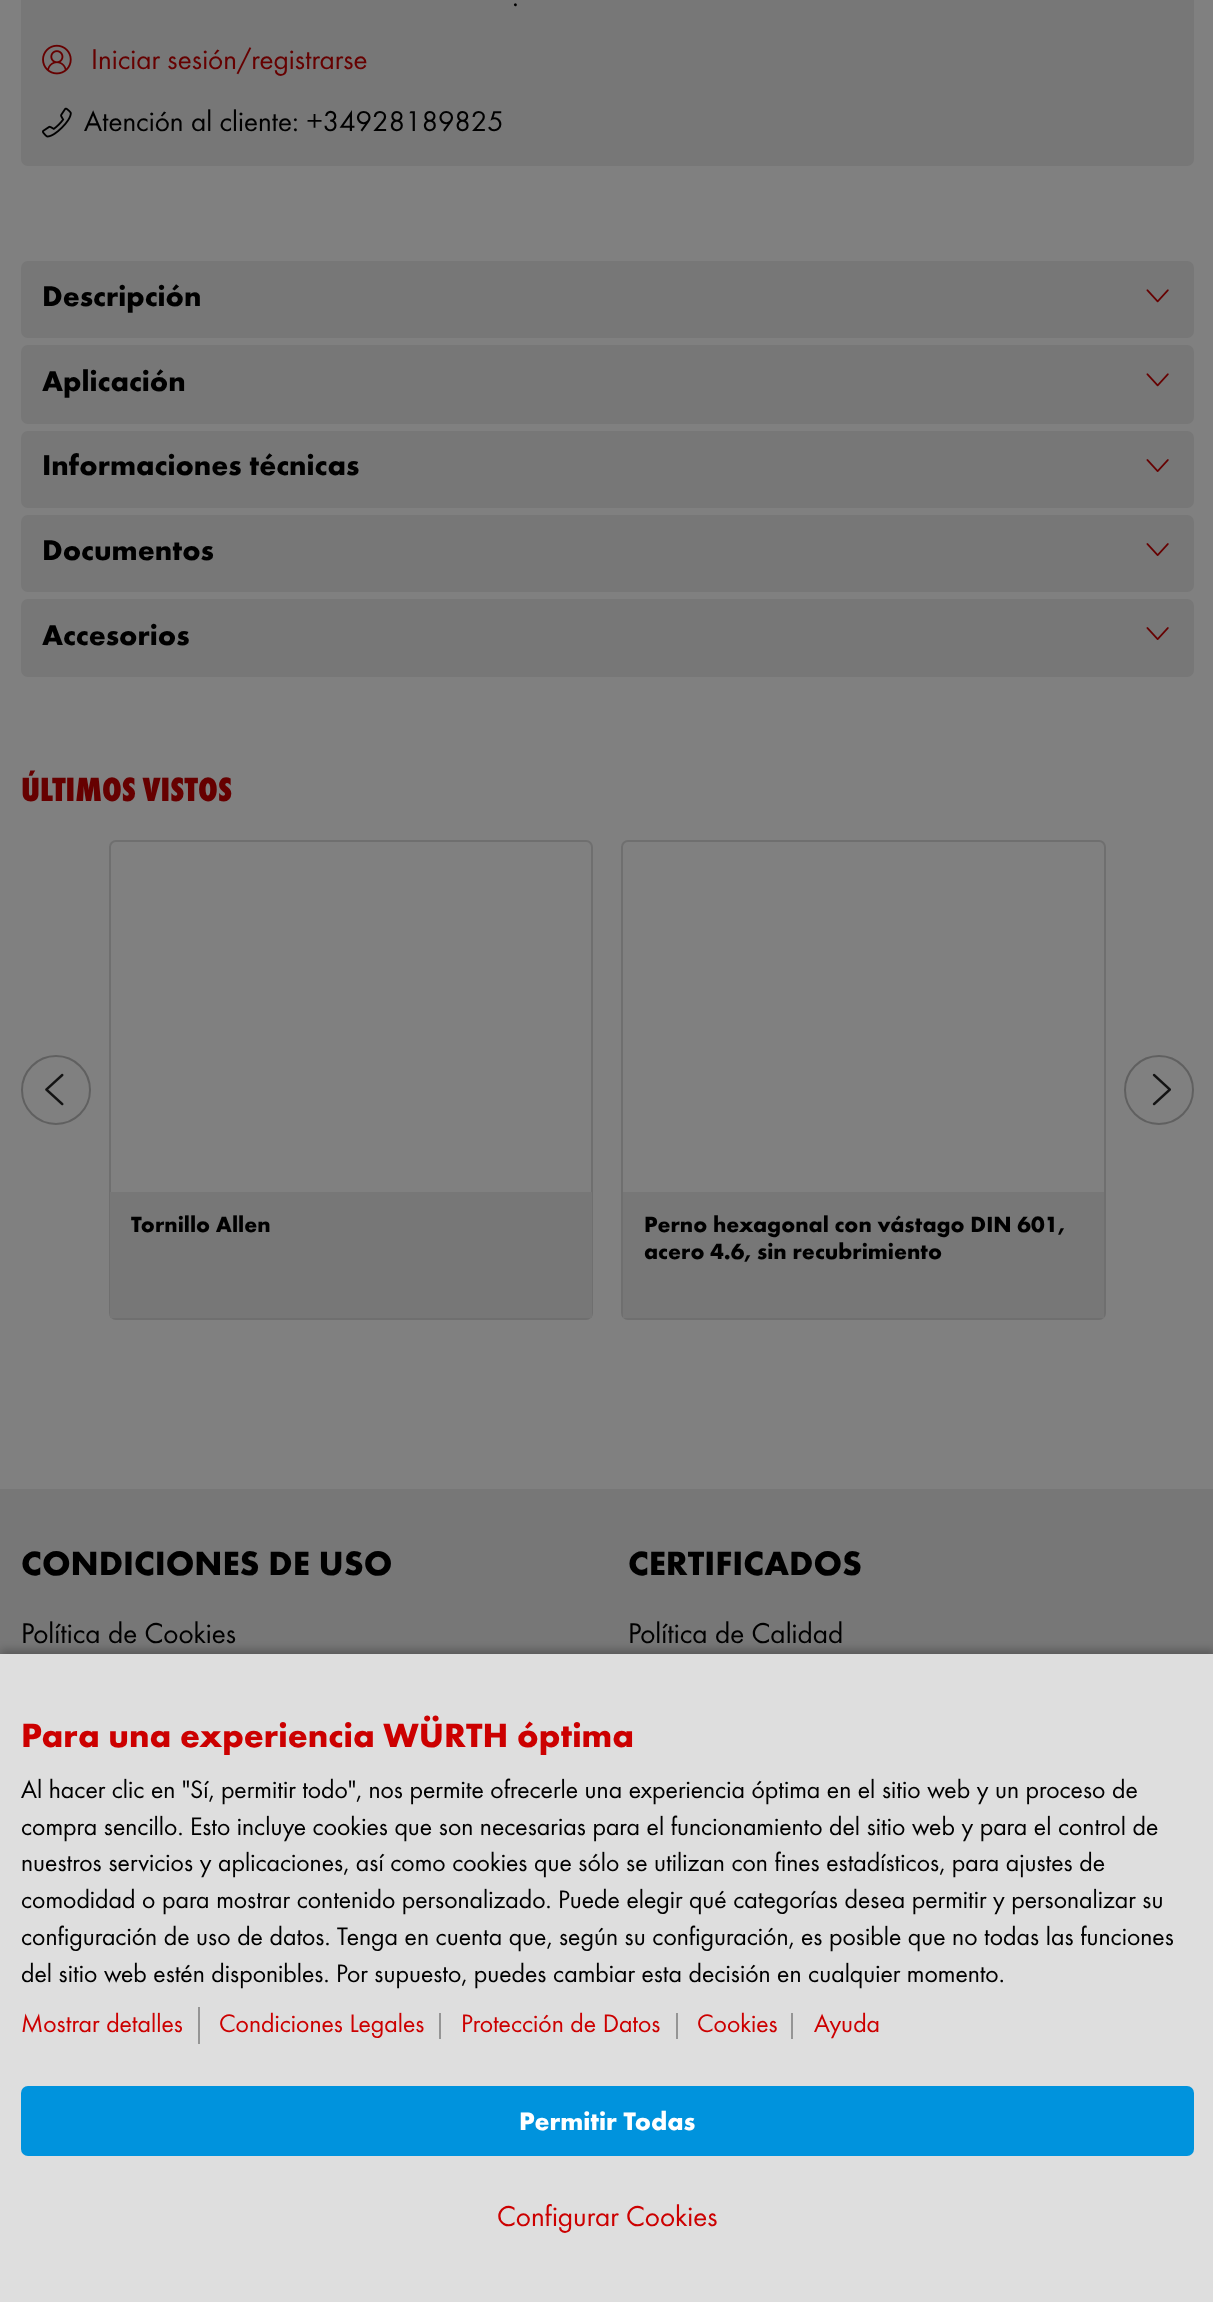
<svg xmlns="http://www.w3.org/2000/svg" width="1213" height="2302">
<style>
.a{font:29.75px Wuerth;fill:#000}
.b{font:29.75px Wuerth;fill:#600}
.c{font:bold 29.75px Wuerth;fill:#000}
.d{font:800 35px Wuerth;fill:#600}
.e{font:bold 22.75px Wuerth;fill:#000}
.f{font:bold 35px Wuerth;fill:#000}
.g{font:bold 35px Wuerth;fill:#c00}
.h{font:26.25px Wuerth;fill:#000}
.i{font:26.25px Wuerth;fill:#c00}
.j{font:bold 26.25px Wuerth;fill:#fff}
.k{font:29.75px Wuerth;fill:#c00}
</style>
<rect width="100%" height="100%" fill="#808080"/>
<rect fill="#777" x="21" y="-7" width="1173" height="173" rx="7"/>
<image href="1.png" x="42" y="44" width="30" height="31"/>
<image href="2.png" x="42" y="107" width="30" height="31"/>
<rect fill="#777" x="21" y="261" width="1173" height="77" rx="7"/>
<image href="3.png" x="1146" y="289" width="23" height="14"/>
<rect fill="#777" x="21" y="345" width="1173" height="79" rx="7"/>
<image href="3.png" x="1146" y="373" width="23" height="14"/>
<rect fill="#777" x="21" y="431" width="1173" height="77" rx="7"/>
<image href="4.png" x="1146" y="459" width="23" height="13"/>
<rect fill="#777" x="21" y="515" width="1173" height="77" rx="7"/>
<image href="4.png" x="1146" y="543" width="23" height="13"/>
<rect fill="#777" x="21" y="599" width="1173" height="78" rx="7"/>
<image href="4.png" x="1146" y="627" width="23" height="13"/>
<circle fill="none" stroke="#606060" stroke-width="2" cx="56" cy="1090" r="34"/>
<image href="5.png" x="45" y="1073" width="19" height="33"/>
<circle fill="none" stroke="#606060" stroke-width="2" cx="1159" cy="1090" r="34"/>
<image href="6.png" x="1152" y="1073" width="19" height="33"/>
<rect fill="none" stroke="#6f6f6f" stroke-width="2" x="110" y="841" width="482" height="478" rx="6"/>
<path fill="#777" d="M110 1192h482v126H110z"/>
<rect fill="none" stroke="#6f6f6f" stroke-width="2" x="622" y="841" width="483" height="478" rx="6"/>
<path fill="#777" d="M623 1192h481v126H623z"/>
<path fill="#777" d="M0 1489h1213v165H0z"/>
<path fill="#00000042" filter="blur(4.5px)" d="M0 1650h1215v650H0z"/>
<path fill="#dedede" d="M0 1654h1213v648H0z"/>
<path fill="#959595" d="M198 2007h2v37H198z"/>
<path fill="#959595" d="M439 2013h2v26H439z"/>
<path fill="#959595" d="M676 2013h2v26H676z"/>
<path fill="#959595" d="M791 2013h2v26H791z"/>
<rect fill="#0093dd" x="21" y="2086" width="1173" height="70" rx="7"/>
<text class="a" x="512" y="6">.</text>
<text class="b" x="91" y="69">Iniciar sesión/registrarse</text>
<text class="a" x="84" y="131">Atención al cliente: +34928189825</text>
<text class="c" x="42" y="306">Descripción</text>
<text class="c" x="42" y="391">Aplicación</text>
<text class="c" x="42" y="475">Informaciones técnicas</text>
<text class="c" x="42" y="560">Documentos</text>
<text class="c" x="42" y="645">Accesorios</text>
<text class="d" x="21" y="801">ÚLTIMOS VISTOS</text>
<text class="e" x="131" y="1232">Tornillo Allen</text>
<text class="e" x="644" y="1232">Perno hexagonal con vástago DIN 601,</text>
<text class="e" x="644" y="1259">acero 4.6, sin recubrimiento</text>
<text class="f" x="21" y="1575">CONDICIONES DE USO</text>
<text class="a" x="21" y="1643">Política de Cookies</text>
<text class="f" x="628" y="1575">CERTIFICADOS</text>
<text class="a" x="628" y="1643">Política de Calidad</text>
<text class="g" x="21" y="1747">Para una experiencia WÜRTH óptima</text>
<text class="h" x="21" y="1798">Al hacer clic en "Sí, permitir todo", nos permite ofrecerle una experiencia óptima en el sitio web y un proceso de</text>
<text class="h" x="21" y="1835">compra sencillo. Esto incluye cookies que son necesarias para el funcionamiento del sitio web y para el control de</text>
<text class="h" x="21" y="1871">nuestros servicios y aplicaciones, así como cookies que sólo se utilizan con fines estadísticos, para ajustes de</text>
<text class="h" x="21" y="1908">comodidad o para mostrar contenido personalizado. Puede elegir qué categorías desea permitir y personalizar su</text>
<text class="h" x="21" y="1945">configuración de uso de datos. Tenga en cuenta que, según su configuración, es posible que no todas las funciones</text>
<text class="h" x="21" y="1982">del sitio web estén disponibles. Por supuesto, puedes cambiar esta decisión en cualquier momento.</text>
<text class="i" x="21" y="2032">Mostrar detalles</text>
<text class="i" x="219" y="2032">Condiciones Legales</text>
<text class="i" x="461" y="2032">Protección de Datos</text>
<text class="i" x="697" y="2032">Cookies</text>
<text class="i" x="814" y="2032">Ayuda</text>
<text class="j" x="519" y="2130">Permitir Todas</text>
<text class="k" x="497" y="2226">Configurar Cookies</text>
</svg>
